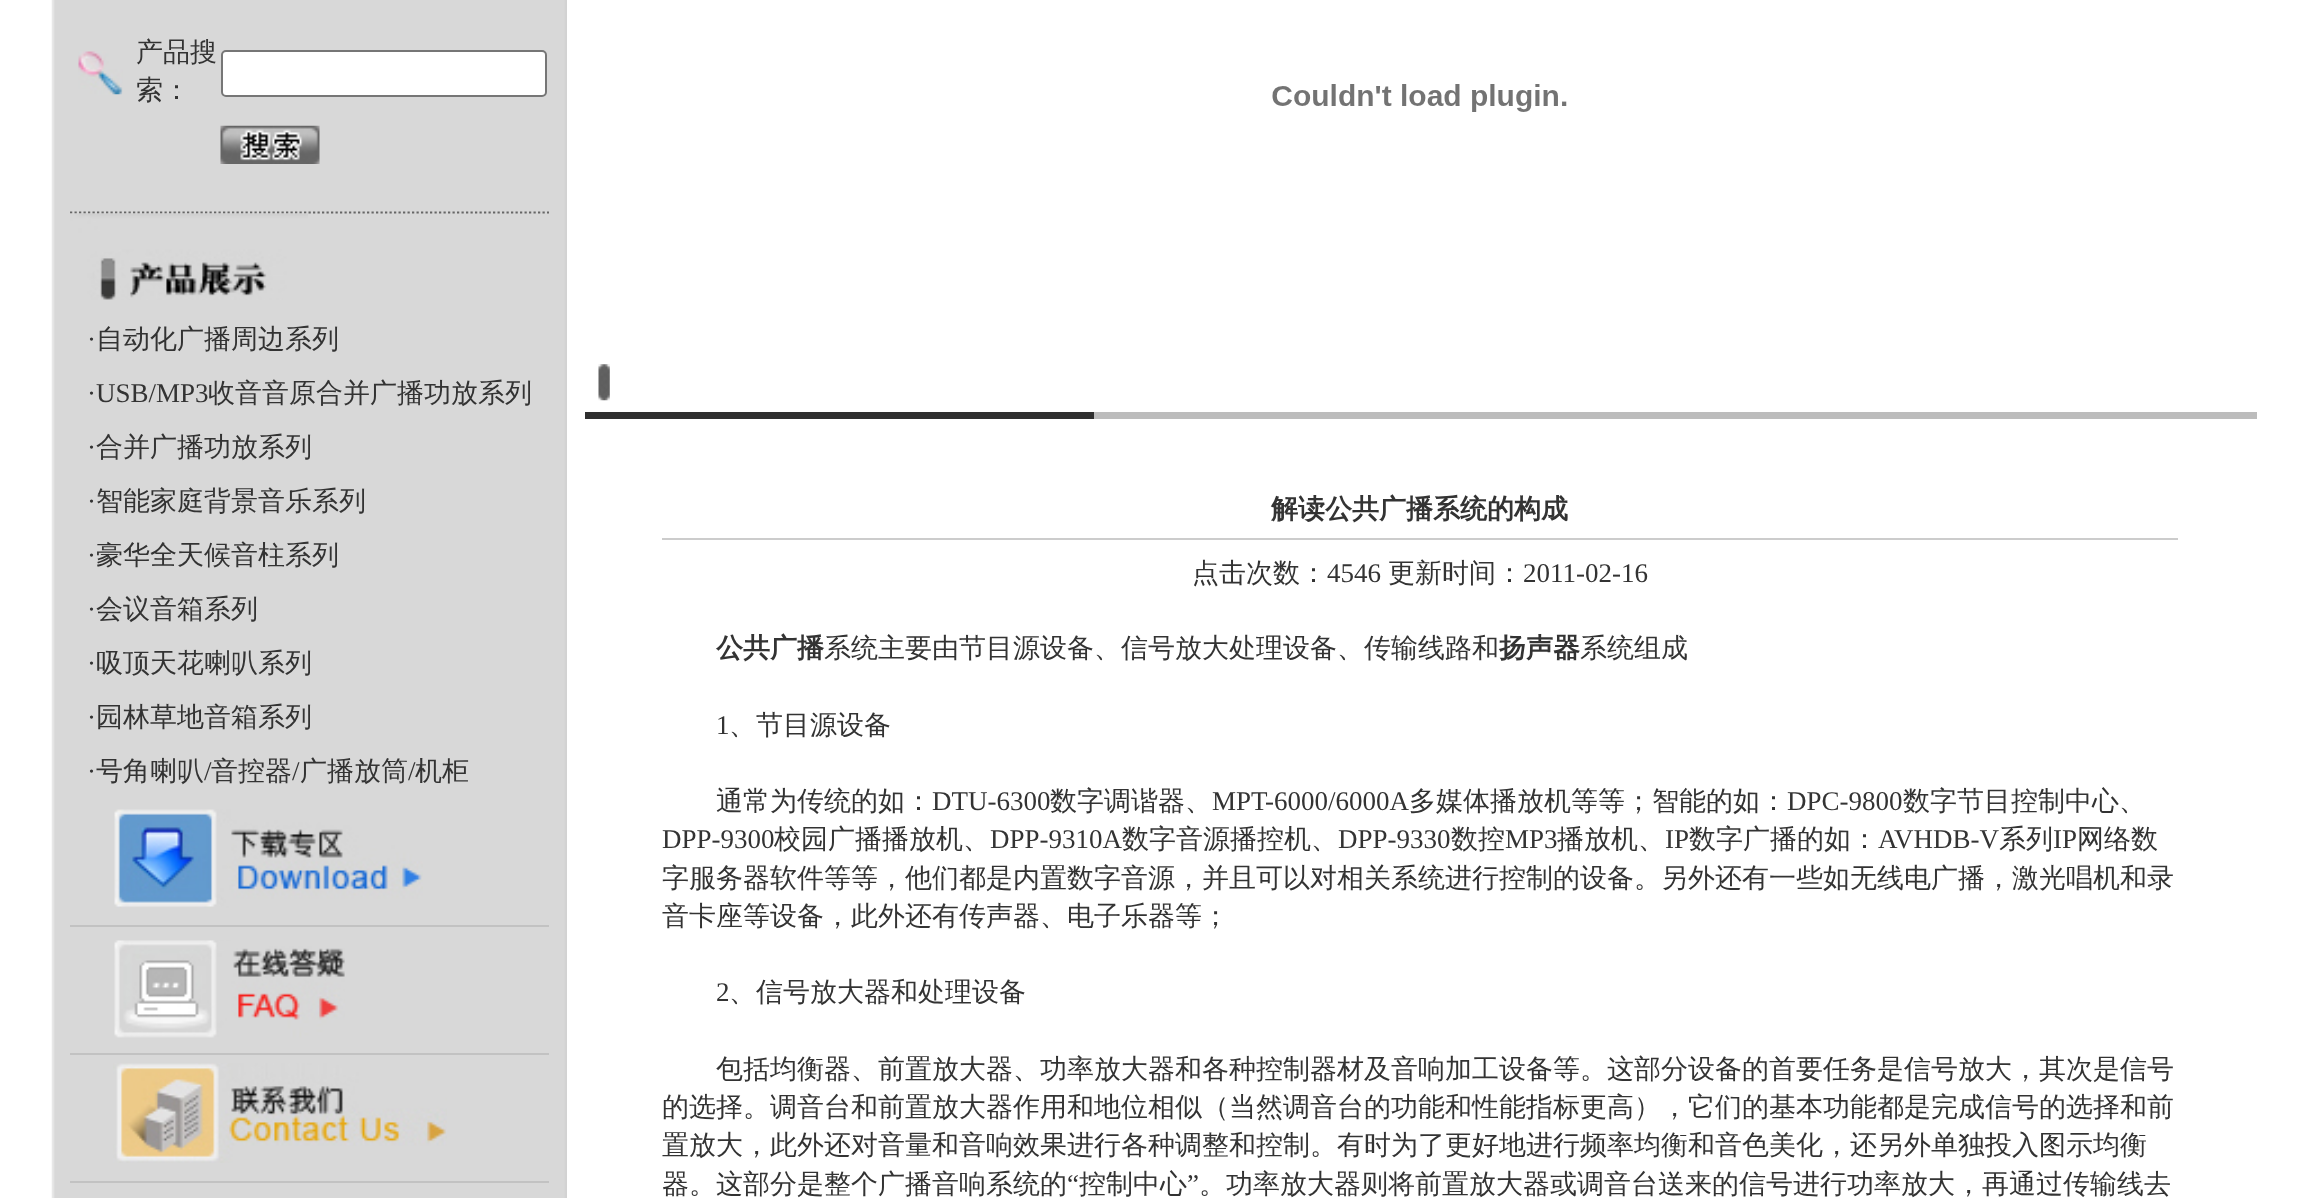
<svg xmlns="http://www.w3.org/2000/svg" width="2305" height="1198">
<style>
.a{font:500 27px WenQuanYi Zen Hei;fill:#333}
.b{font:27px Liberation Serif;fill:#333}
.c{font:bold 27px WenQuanYi Zen Hei;fill:#333}
</style>
<rect width="100%" height="100%" fill="#fff"/>
<image href="1.png" x="51" y="0" width="516" height="1198"/>
<path fill="none" stroke="#666" stroke-width="2.2" stroke-dasharray="2.25 2.25" d="M70-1h479"/>
<image href="2.png" x="78" y="51" width="45" height="44"/>
<rect fill="#fff" stroke="#767676" stroke-width="2" x="222" y="51" width="324" height="45" rx="4"/>
<image href="3.png" x="220" y="125" width="100" height="39"/>
<path fill="none" stroke="#666" stroke-width="2.2" stroke-dasharray="2.25 2.25" d="M70 212.5h479"/>
<image href="4.png" x="70" y="213" width="238" height="87"/>
<path fill="#c2c2c2" d="M70 925h479v2H70z"/>
<image href="5.png" x="114" y="809" width="309" height="99"/>
<path fill="#c2c2c2" d="M70 1053h479v2H70z"/>
<image href="6.png" x="114" y="940" width="231" height="98"/>
<path fill="#c2c2c2" d="M70 1181h479v2H70z"/>
<image href="7.png" x="113" y="1063" width="334" height="100"/>
<image href="8.png" x="1272" y="84" width="295" height="28"/>
<image href="9.png" x="598" y="364" width="12" height="37"/>
<path fill="#2f2f2f" d="M585 412h509v7H585z"/>
<path fill="#bcbcbc" d="M1094 412h1163v7H1094z"/>
<path fill="#ccc" d="M662 538h1516v2H662z"/>
<text class="a" x="136" y="61">产品搜</text>
<text class="a" x="136" y="99">索：</text>
<text class="b" x="87" y="348">·</text>
<text class="a" x="96" y="348">自动化广播周边系列</text>
<text class="b" x="87" y="402">·USB/MP3</text>
<text class="a" x="208" y="402">收音音原合并广播功放系列</text>
<text class="b" x="87" y="456">·</text>
<text class="a" x="96" y="456">合并广播功放系列</text>
<text class="b" x="87" y="510">·</text>
<text class="a" x="96" y="510">智能家庭背景音乐系列</text>
<text class="b" x="87" y="564">·</text>
<text class="a" x="96" y="564">豪华全天候音柱系列</text>
<text class="b" x="87" y="618">·</text>
<text class="a" x="96" y="618">会议音箱系列</text>
<text class="b" x="87" y="672">·</text>
<text class="a" x="96" y="672">吸顶天花喇叭系列</text>
<text class="b" x="87" y="726">·</text>
<text class="a" x="96" y="726">园林草地音箱系列</text>
<text class="b" x="87" y="780">·</text>
<text class="a" x="96" y="780">号角喇叭</text>
<text class="b" x="204" y="780">/</text>
<text class="a" x="211" y="780">音控器</text>
<text class="b" x="292" y="780">/</text>
<text class="a" x="300" y="780">广播放筒</text>
<text class="b" x="408" y="780">/</text>
<text class="a" x="415" y="780">机柜</text>
<text class="c" x="1271" y="518">解读公共广播系统的构成</text>
<text class="a" x="1192" y="582">点击次数：</text>
<text class="b" x="1327" y="582">4546</text>
<text class="a" x="1388" y="582">更新时间：</text>
<text class="b" x="1523" y="582">2011-02-16</text>
<text class="c" x="716" y="657">公共广播</text>
<text class="a" x="824" y="657">系统主要由节目源设备、信号放大处理设备、传输线路和</text>
<text class="c" x="1499" y="657">扬声器</text>
<text class="a" x="1580" y="657">系统组成</text>
<text class="b" x="716" y="734">1</text>
<text class="a" x="729" y="734">、节目源设备</text>
<text class="a" x="716" y="810">通常为传统的如：</text>
<text class="b" x="932" y="810">DTU-6300</text>
<text class="a" x="1050" y="810">数字调谐器、</text>
<text class="b" x="1212" y="810">MPT-6000/6000A</text>
<text class="a" x="1409" y="810">多媒体播放机等等；智能的如：</text>
<text class="b" x="1787" y="810">DPC-9800</text>
<text class="a" x="1903" y="810">数字节目控制中心、</text>
<text class="b" x="662" y="848">DPP-9300</text>
<text class="a" x="774" y="848">校园广播播放机、</text>
<text class="b" x="990" y="848">DPP-9310A</text>
<text class="a" x="1122" y="848">数字音源播控机、</text>
<text class="b" x="1338" y="848">DPP-9330</text>
<text class="a" x="1451" y="848">数控</text>
<text class="b" x="1505" y="848">MP3</text>
<text class="a" x="1557" y="848">播放机、</text>
<text class="b" x="1665" y="848">IP</text>
<text class="a" x="1689" y="848">数字广播的如：</text>
<text class="b" x="1878" y="848">AVHDB-V</text>
<text class="a" x="1999" y="848">系列</text>
<text class="b" x="2053" y="848">IP</text>
<text class="a" x="2077" y="848">网络数</text>
<text class="a" x="662" y="887">字服务器软件等等，他们都是内置数字音源，并且可以对相关系统进行控制的设备。另外还有一些如无线电广播，激光唱机和录</text>
<text class="a" x="662" y="925">音卡座等设备，此外还有传声器、电子乐器等；</text>
<text class="b" x="716" y="1001">2</text>
<text class="a" x="729" y="1001">、信号放大器和处理设备</text>
<text class="a" x="716" y="1078">包括均衡器、前置放大器、功率放大器和各种控制器材及音响加工设备等。这部分设备的首要任务是信号放大，其次是信号</text>
<text class="a" x="662" y="1116">的选择。调音台和前置放大器作用和地位相似（当然调音台的功能和性能指标更高），它们的基本功能都是完成信号的选择和前</text>
<text class="a" x="662" y="1154">置放大，此外还对音量和音响效果进行各种调整和控制。有时为了更好地进行频率均衡和音色美化，还另外单独投入图示均衡</text>
<text class="a" x="662" y="1193">器。这部分是整个广播音响系统的</text>
<text class="b" x="1067" y="1193">“</text>
<text class="a" x="1079" y="1193">控制中心</text>
<text class="b" x="1187" y="1193">”</text>
<text class="a" x="1199" y="1193">。功率放大器则将前置放大器或调音台送来的信号进行功率放大，再通过传输线去</text>
</svg>
